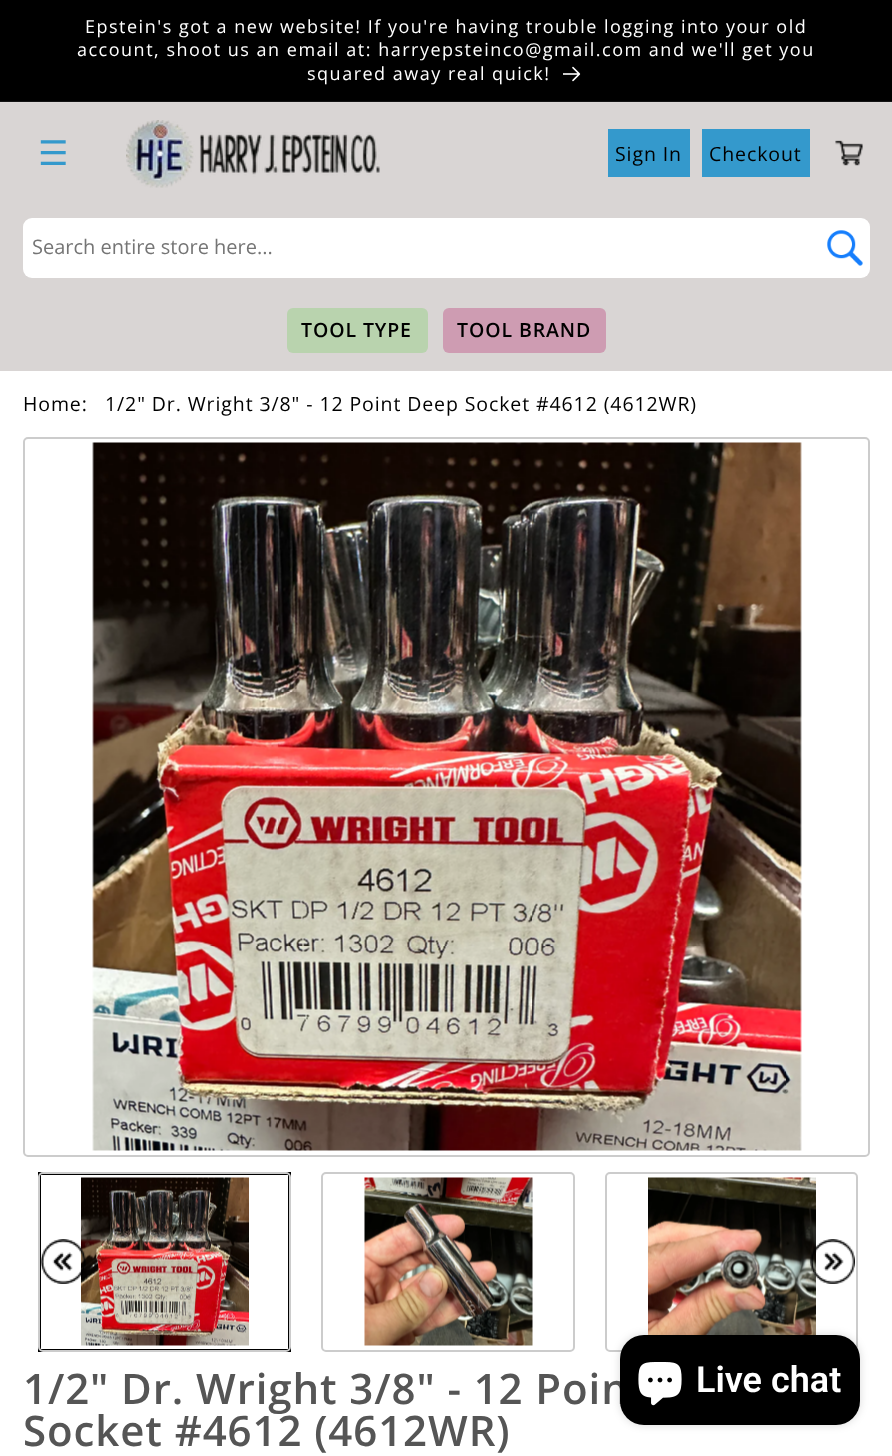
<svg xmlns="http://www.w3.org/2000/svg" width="892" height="1456">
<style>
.a{font:18px Open Sans;letter-spacing:1.5px;fill:#fff}
.b{font:34px DejaVu Sans;fill:#3499cc}
.c{font:19.5px Open Sans;letter-spacing:0.9px;fill:#000}
.d{font:20px Open Sans;fill:#757575}
.e{font:600 19.5px Open Sans;letter-spacing:0.9px;fill:#000}
.f{font:600 42px Open Sans;letter-spacing:0.9px;fill:#555}
.g{font:600 36px Roboto;fill:#fff}
</style>
<rect width="100%" height="100%" fill="#fff"/>
<path fill="#000" d="M0 0h892v101H0z"/>
<path fill="#141414" d="M0 101h892v1H0z"/>
<image href="1.png" x="563" y="66" width="18" height="16"/>
<path fill="#d9d5d4" d="M0 103h892v268H0z"/>
<path fill="#dcd8d7" d="M0 102h892v1H0z"/>
<image href="2.png" x="126" y="120" width="254" height="68"/>
<path fill="#3499cc" d="M608 129h82v48H608z"/>
<path fill="#3499cc" d="M702 129h108v48H702z"/>
<image href="3.png" x="835" y="140" width="28" height="26"/>
<rect fill="#fff" x="23" y="218" width="847" height="60" rx="9"/>
<image href="4.png" x="827" y="230" width="36" height="36"/>
<rect fill="#b9d3ae" x="287" y="308" width="141" height="45" rx="6"/>
<rect fill="#ce9cb2" x="443" y="308" width="163" height="45" rx="6"/>
<rect fill="none" stroke="#ccc" stroke-width="2" x="24" y="438" width="845" height="718" rx="4"/>
<image href="5.png" x="92" y="442" width="710" height="709"/>
<path fill="none" stroke="#000" stroke-width="3" d="M39.5 1173.5h250v177H39.5z"/>
<rect fill="none" stroke="#ccc" stroke-width="2" x="39" y="1173" width="251" height="178" rx="4"/>
<image href="6.png" x="81" y="1177" width="168" height="169"/>
<rect fill="none" stroke="#ccc" stroke-width="2" x="322" y="1173" width="252" height="178" rx="4"/>
<image href="7.png" x="364" y="1177" width="169" height="169"/>
<rect fill="none" stroke="#ccc" stroke-width="2" x="606" y="1173" width="251" height="178" rx="4"/>
<image href="8.png" x="648" y="1177" width="168" height="158"/>
<image href="9.png" x="41" y="1239" width="45" height="45"/>
<image href="10.png" x="810" y="1239" width="45" height="45"/>
<rect fill="#00000026" filter="blur(4px)" x="620" y="1335" width="240" height="90" rx="24"/>
<text class="a" x="85" y="33">Epstein's got a new website! If you're having trouble logging into your old</text>
<text class="a" x="77" y="56">account, shoot us an email at: harryepsteinco@gmail.com and we'll get you</text>
<text class="a" x="307" y="80">squared away real quick!</text>
<text class="b" x="38" y="165">☰</text>
<text class="c" x="615" y="161">Sign In</text>
<text class="c" x="709" y="161">Checkout</text>
<text class="d" x="32" y="254">Search entire store here...</text>
<text class="e" x="301" y="337">TOOL TYPE</text>
<text class="e" x="457" y="337">TOOL BRAND</text>
<text class="c" x="23" y="411">Home:</text>
<text class="c" x="105" y="411">1/2" Dr. Wright 3/8" - 12 Point Deep Socket #4612 (4612WR)</text>
<text class="f" x="23" y="1404">1/2" Dr. Wright 3/8" - 12 Poin</text>
<text class="f" x="23" y="1446">Socket #4612 (4612WR)</text>
<rect fill="#000" x="620" y="1335" width="240" height="90" rx="24"/>
<image href="11.png" x="638" y="1362" width="44" height="44"/>
<text class="g" x="696" y="1392">Live chat</text>
</svg>
